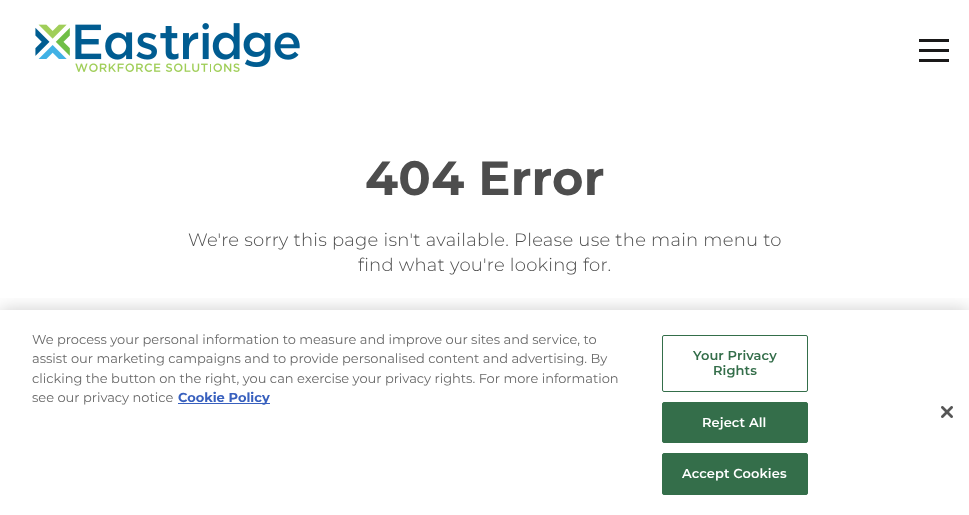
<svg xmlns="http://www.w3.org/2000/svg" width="969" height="515">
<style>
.a{font:bold 48px Montserrat;letter-spacing:0.25px;fill:#4d4d4d}
.b{font:300 18px Montserrat;letter-spacing:0.25px;fill:#4d4d4d}
.c{font:13px Montserrat;fill:#696969}
.d{font:bold 13px Montserrat;fill:#3860be}
.e{font:600 13px Montserrat;letter-spacing:0.1px;fill:#346e4a}
.f{font:600 13px Montserrat;letter-spacing:0.1px;fill:#fff}
</style>
<defs>
<clipPath id="clip1"><path d="M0 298h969v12H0z"/></clipPath>
</defs>
<rect width="100%" height="100%" fill="#fff"/>
<image href="1.png" x="35" y="23" width="265" height="49"/>
<path fill="#1a1919" d="M919 49h30v3H919z"/>
<path fill="#1a1919" d="M919 39h30v3H919z"/>
<path fill="#1a1919" d="M919 59h30v3H919z"/>
<g clip-path="url(#clip1)">
<path fill="#00000033" filter="blur(9px)" d="M0 310h969v205H0z"/>
</g>
<path fill="#3860be" d="M178 403h92v1H178z"/>
<rect fill="none" stroke="#346e4a" x="662.5" y="335.5" width="145" height="56" rx="1.5"/>
<rect fill="#346e4a" stroke="#346e4a" x="662.5" y="402.5" width="145" height="40" rx="1.5"/>
<rect fill="#346e4a" stroke="#346e4a" x="662.5" y="453.5" width="145" height="41" rx="1.5"/>
<image href="2.png" x="941" y="406" width="12" height="12"/>
<text class="a" x="365" y="195">404 Error</text>
<text class="b" x="188" y="246">We're sorry this page isn't available. Please use the main menu to</text>
<text class="b" x="358" y="271">find what you're looking for.</text>
<text class="c" x="32" y="344">We process your personal information to measure and improve our sites and service, to</text>
<text class="c" x="32" y="363">assist our marketing campaigns and to provide personalised content and advertising. By</text>
<text class="c" x="32" y="383">clicking the button on the right, you can exercise your privacy rights. For more information</text>
<text class="c" x="32" y="402">see our privacy notice</text>
<text class="d" x="178" y="402">Cookie Policy</text>
<text class="e" x="693" y="360">Your Privacy</text>
<text class="e" x="713" y="375">Rights</text>
<text class="f" x="702" y="427">Reject All</text>
<text class="f" x="682" y="478">Accept Cookies</text>
</svg>
